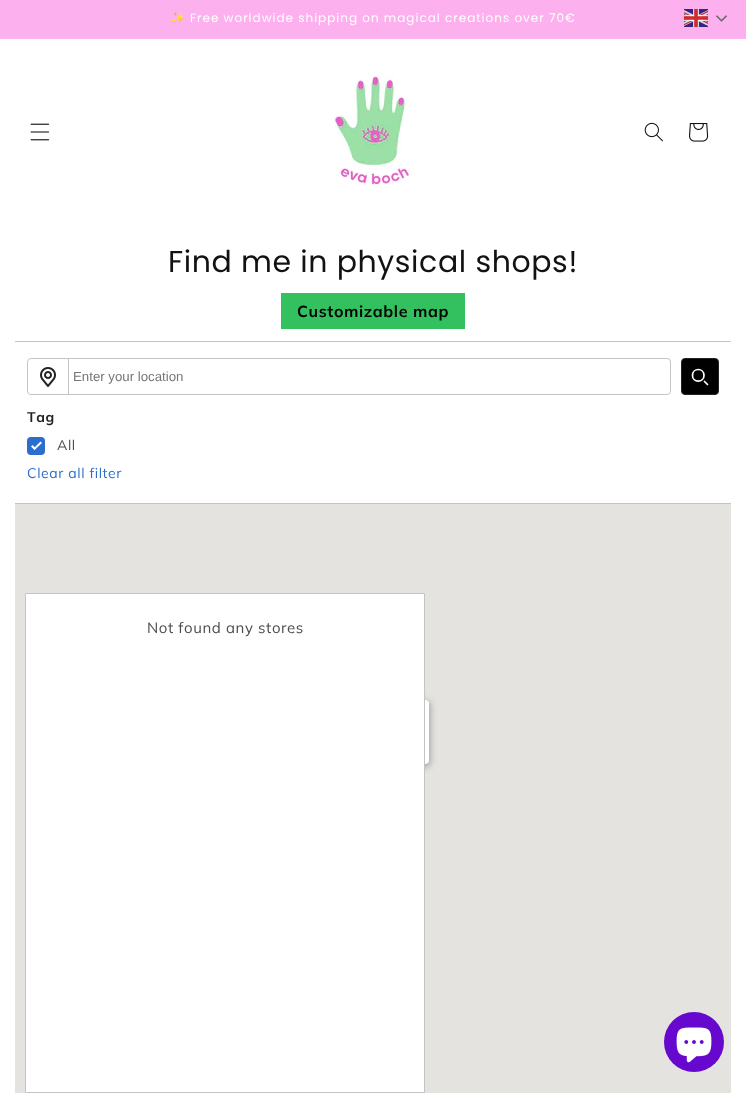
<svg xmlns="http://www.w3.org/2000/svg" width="746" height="1093">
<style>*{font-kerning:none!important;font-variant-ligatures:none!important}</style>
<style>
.a{font:12px Noto Color Emoji;letter-spacing:1px;fill:#fff}
.b{font:12px Poppins;letter-spacing:1px;fill:#fff}
.c{font:30px Poppins;letter-spacing:0.6px;fill:#121212}
.d{font:bold 16px Muli;letter-spacing:0.6px;fill:#000}
.e{font:13.25px Liberation Sans;fill:#757575}
.f{font:bold 14px Muli;letter-spacing:0.6px;fill:#202223}
.g{font:14px Muli;letter-spacing:0.6px;fill:#4d4d4d}
.h{font:14px Muli;letter-spacing:0.6px;fill:#2c6ecb}
.i{font:15px Muli;letter-spacing:0.6px;fill:#4d4d4d}
</style>
<rect width="100%" height="100%" fill="#fff"/>
<path fill="#fdb0ee" d="M0 0h746v38H0z"/>
<path fill="#fdb6ef" d="M0 38h746v1H0z"/>
<image href="1.png" x="684" y="9" width="24" height="18"/>
<image href="2.png" x="716" y="15" width="11" height="7"/>
<image href="3.png" x="30" y="123" width="20" height="18"/>
<image href="4.png" x="334" y="73" width="76" height="113"/>
<image href="5.png" x="644" y="122" width="19" height="20"/>
<image href="6.png" x="689" y="123" width="20" height="19"/>
<path fill="#33c15f" d="M281 293h184v36H281z"/>
<path fill="#c4c4c4" d="M15 341h716v1H15z"/>
<rect fill="none" stroke="#c4c4c4" x="27.5" y="358.5" width="643" height="36" rx="3.5"/>
<path fill="#c4c4c4" d="M68 359h1v35H68z"/>
<image href="7.png" x="40" y="367" width="16" height="20"/>
<rect fill="#000" stroke="#232227" x="681.5" y="358.5" width="37" height="36" rx="3.5"/>
<path fill="none" stroke="#fff" stroke-width="1.7" stroke-linecap="round" d="M707.5 384.5l-3-3m-.5-6c0 7.5-11.5 7.5-11.5 0c0-8 11.5-8 11.5 0z"/>
<rect fill="#2c6ecb" stroke="#2c6ecb" stroke-width="2" x="28" y="438" width="16" height="16" rx="3"/>
<path fill="#fff" d="M40.5 441.5l1.5 1.5l-7.5 7l-1-1.5z"/>
<path fill="#fff" d="M32.5 445l3.5 3.5l-1.5 1.5l-3.5-3.5z"/>
<path fill="#c4c4c4" d="M15 503h716v1H15z"/>
<path fill="#e5e3df" d="M15 504h716v589H15z"/>
<rect fill="#0000004d" filter="blur(3.5px)" x="317" y="701" width="113" height="66" rx="5"/>
<rect fill="#fff" x="318" y="700" width="111" height="64" rx="4"/>
<path fill="#fff" stroke="#c4c4c4" d="M25.5 593.5h399v499H25.5z"/>
<circle fill="#6708ce" cx="694" cy="1042" r="30"/>
<image href="8.png" x="676" y="1027" width="36" height="36"/>
<text class="a" x="170" y="22">✨</text>
<text class="b" x="190" y="22">Free worldwide shipping on magical creations over 70€</text>
<text class="c" x="168" y="272">Find me in physical shops!</text>
<text class="d" x="297" y="317">Customizable map</text>
<text class="e" x="73" y="381">Enter your location</text>
<text class="f" x="27" y="422">Tag</text>
<text class="g" x="57" y="450">All</text>
<text class="h" x="27" y="478">Clear all filter</text>
<text class="i" x="147" y="633">Not found any stores</text>
</svg>
